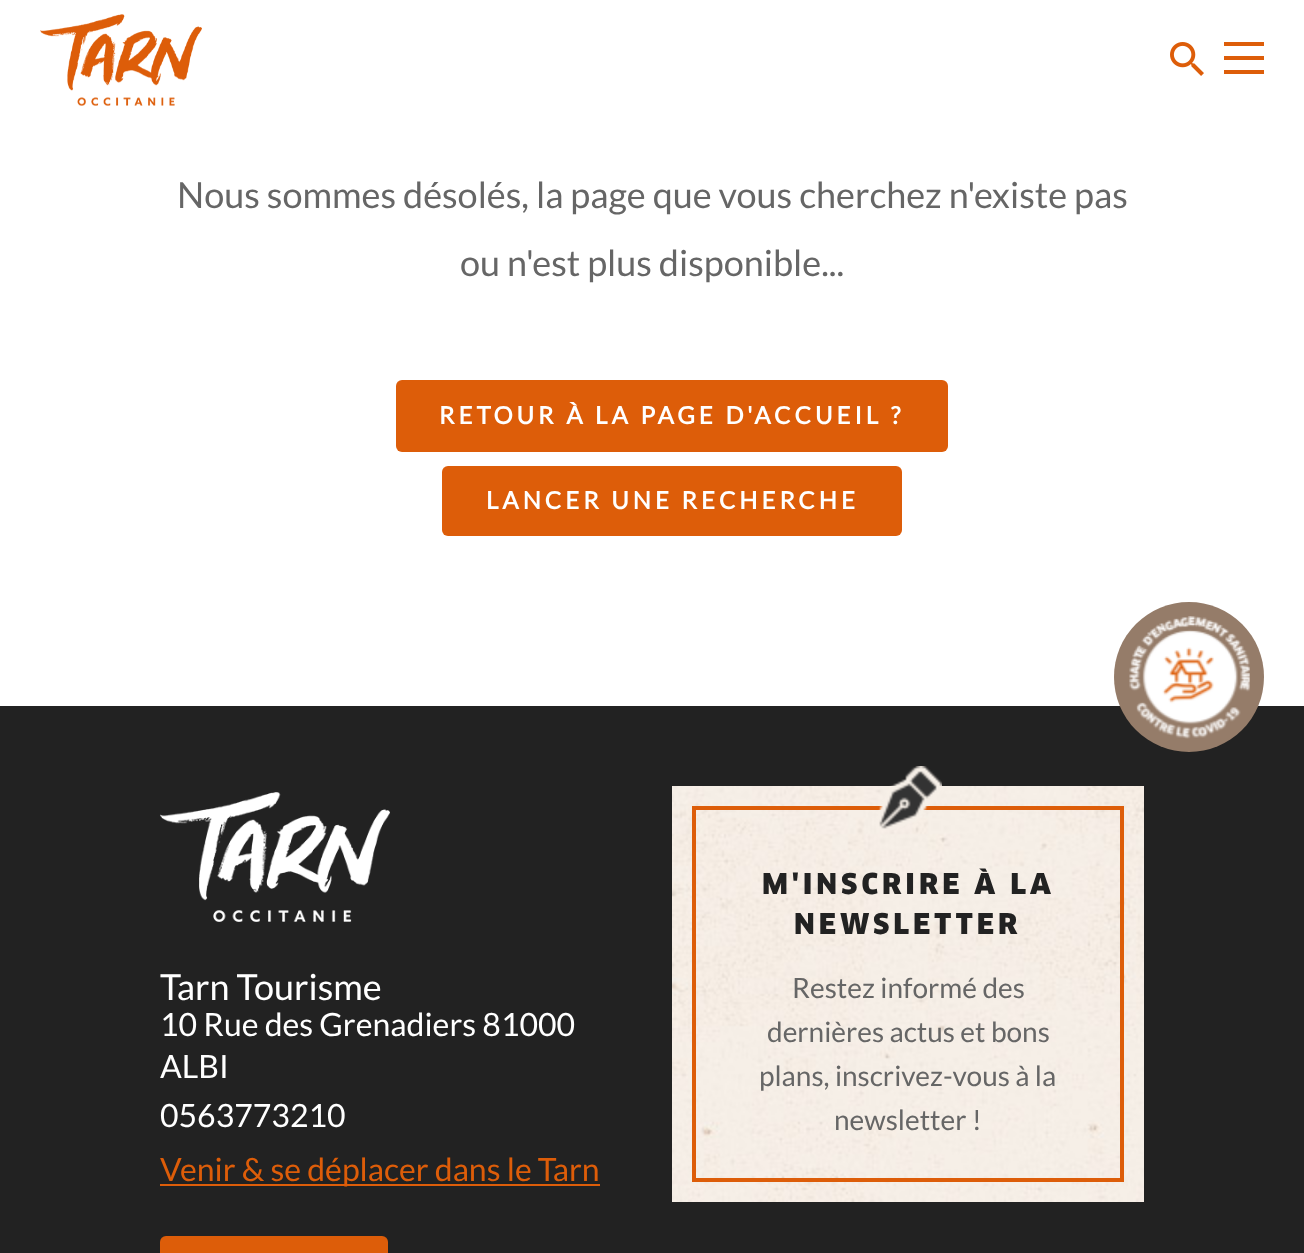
<svg xmlns="http://www.w3.org/2000/svg" width="1304" height="1253">
<style>
.a{font:36px Lato;fill:#666}
.b{font:bold 24px Lato;letter-spacing:4px;fill:#fff}
.c{font:36px Lato;fill:#fff}
.d{font:32px Lato;fill:#fff}
.e{font:32px Lato;fill:#dd5d09}
.f{font:900 28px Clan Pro;letter-spacing:4px;fill:#222}
.g{font:28px Lato;fill:#666}
</style>
<rect width="100%" height="100%" fill="#fff"/>
<image href="1.png" x="40" y="14" width="162" height="92"/>
<image href="2.png" x="1170" y="42" width="34" height="34"/>
<path fill="#dd5d09" d="M1224 42h40v4H1224z"/>
<path fill="#dd5d09" d="M1224 56h40v4H1224z"/>
<path fill="#dd5d09" d="M1224 70h40v4H1224z"/>
<rect fill="#dd5d09" x="396" y="380" width="552" height="72" rx="6"/>
<rect fill="#dd5d09" x="442" y="466" width="460" height="70" rx="6"/>
<path fill="#222" d="M0 706h1304v547H0z"/>
<circle fill="#957c69" cx="1189" cy="677" r="75"/>
<image href="3.png" x="1129" y="616" width="121" height="123"/>
<image href="4.png" x="160" y="792" width="230" height="130"/>
<path fill="#dd5d09" d="M160 1184h440v2H160z"/>
<rect fill="#dd5d09" x="160" y="1236" width="228" height="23" rx="6"/>
<image href="5.png" x="672" y="786" width="472" height="416"/>
<path fill="none" stroke="#dd5d09" stroke-width="4" d="M694 808h428v372H694z"/>
<image href="6.png" x="878" y="766" width="64" height="64"/>
<text class="a" x="177" y="208">Nous sommes désolés, la page que vous cherchez n'existe pas</text>
<text class="a" x="460" y="276">ou n'est plus disponible...</text>
<text class="b" x="439" y="424">RETOUR À LA PAGE D'ACCUEIL ?</text>
<text class="b" x="486" y="509">LANCER UNE RECHERCHE</text>
<text class="c" x="160" y="1000">Tarn Tourisme</text>
<text class="d" x="160" y="1036">10 Rue des Grenadiers 81000</text>
<text class="d" x="160" y="1078">ALBI</text>
<text class="d" x="160" y="1127">0563773210</text>
<text class="e" x="160" y="1181">Venir &amp; se déplacer dans le Tarn</text>
<text class="f" x="762" y="894">M'INSCRIRE À LA</text>
<text class="f" x="794" y="934">NEWSLETTER</text>
<text class="g" x="792" y="998">Restez informé des</text>
<text class="g" x="767" y="1042">dernières actus et bons</text>
<text class="g" x="759" y="1086">plans, inscrivez-vous à la</text>
<text class="g" x="834" y="1130">newsletter !</text>
</svg>
